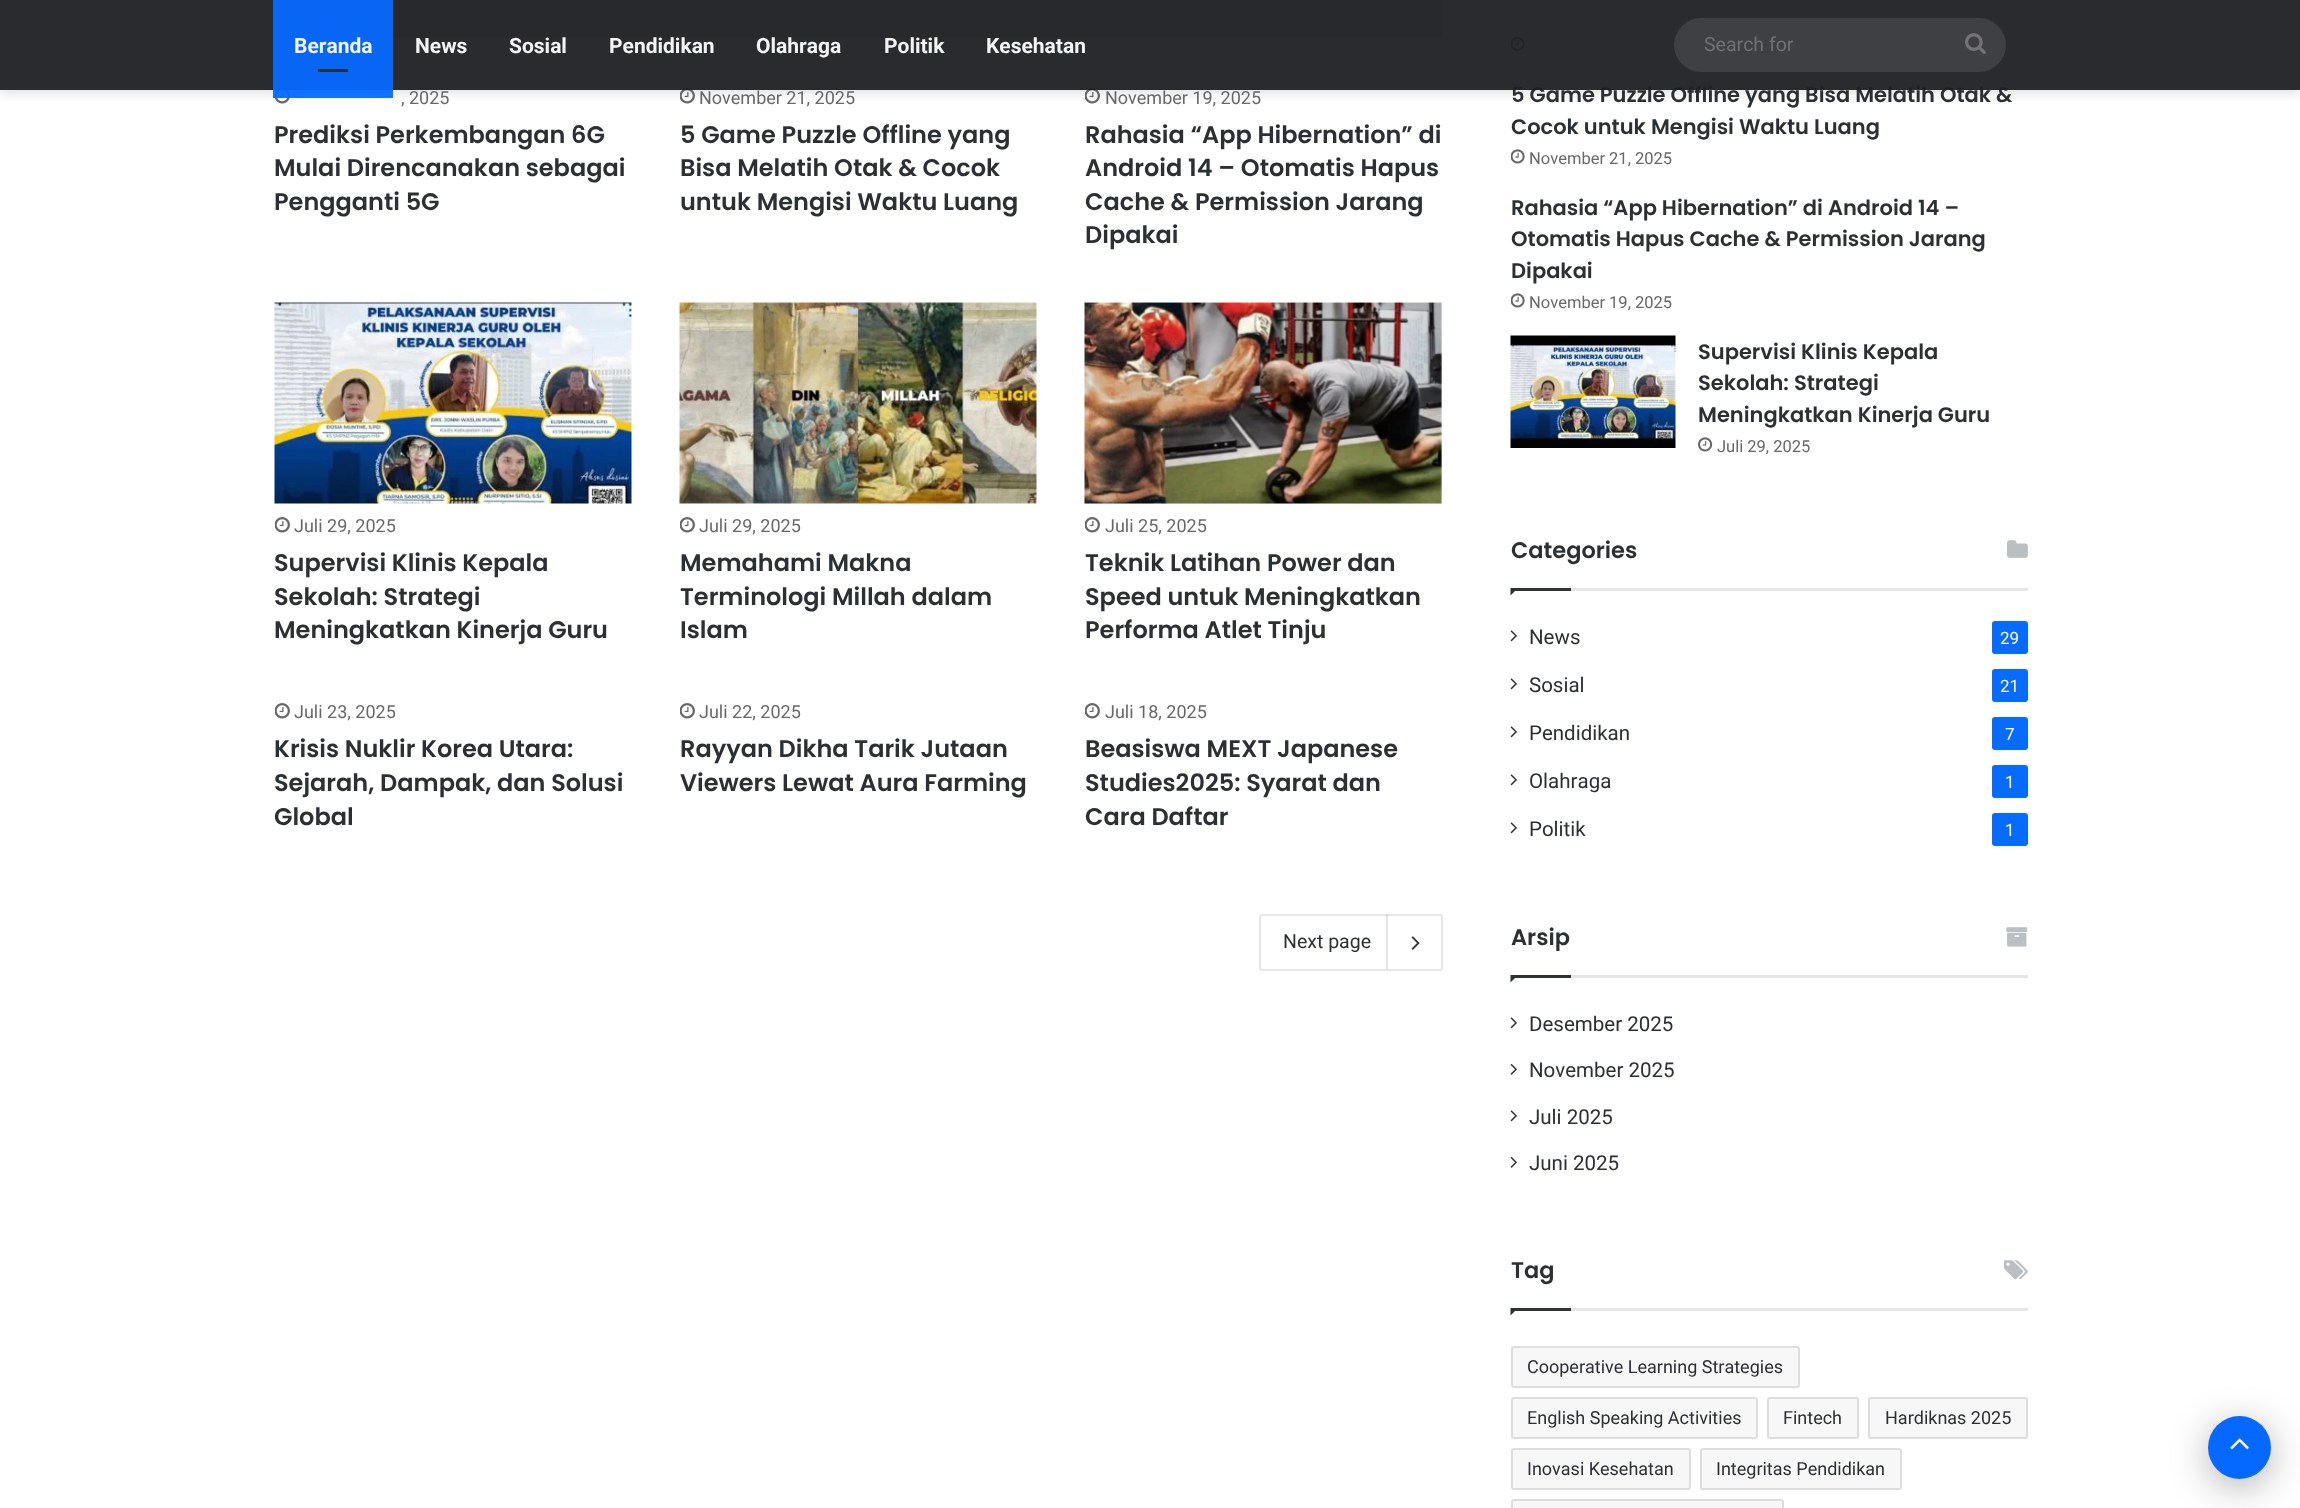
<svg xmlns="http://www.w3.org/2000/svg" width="2300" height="1508">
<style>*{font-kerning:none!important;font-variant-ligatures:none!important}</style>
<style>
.a{font:18px Roboto;fill:#686868}
.b{font:600 24px Poppins;fill:#2c2f34}
.c{font:19.5px Roboto;fill:#2c2f34}
.d{font:600 21px Poppins;fill:#2c2f34}
.e{font:19.5px Roboto;fill:#717171}
.f{font:bold 21px Roboto;fill:#f4f4f5}
.g{font:16.5px Roboto;fill:#686868}
.h{font:600 22.5px Poppins;fill:#2c2f34}
.i{font:20.5px Roboto;fill:#2c2f34}
.j{font:17px Roboto;fill:#fff}
.k{font:18px Roboto;fill:#2c2f34}
</style>
<defs>
<clipPath id="clip1"><path d="M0 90h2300v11H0z"/></clipPath>
</defs>
<rect width="100%" height="100%" fill="#fff"/>
<path fill="#cdcdcd" d="M275 0h1167v38H275z"/>
<image href="2.png" x="275" y="88" width="15" height="16"/>
<image href="2.png" x="680" y="88" width="15" height="16"/>
<image href="2.png" x="1085" y="88" width="15" height="16"/>
<image href="7.png" x="1511" y="36" width="14" height="15"/>
<g clip-path="url(#clip1)">
<path fill="#63636333" filter="blur(6px)" d="M0 3h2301v90H0z"/>
</g>
<path fill="#0669fff2" d="M273 90h120v8H273z"/>
<image href="3.png" x="274" y="302" width="358" height="202"/>
<image href="2.png" x="275" y="517" width="15" height="16"/>
<image href="4.png" x="679" y="302" width="358" height="202"/>
<image href="2.png" x="680" y="517" width="15" height="16"/>
<image href="5.png" x="1084" y="302" width="358" height="202"/>
<image href="2.png" x="1085" y="517" width="15" height="16"/>
<image href="2.png" x="275" y="703" width="15" height="16"/>
<image href="2.png" x="680" y="703" width="15" height="16"/>
<image href="2.png" x="1085" y="703" width="15" height="16"/>
<rect fill="none" stroke="#e6e6e6" stroke-width="2" x="1260" y="915" width="182" height="55" rx="2"/>
<path fill="#0000001a" d="M1386 915h2v54H1386z"/>
<image href="6.png" x="1411" y="936" width="9" height="14"/>
<image href="8.png" x="1511" y="149" width="14" height="15"/>
<image href="8.png" x="1511" y="293" width="14" height="15"/>
<image href="9.png" x="1510" y="335" width="166" height="113"/>
<image href="10.png" x="1698" y="437" width="15" height="15"/>
<path fill="#e6e6e6" d="M1571 588h457v3H1571z"/>
<image href="11.png" x="2007" y="540" width="21" height="18"/>
<path fill="#2e3136" d="M1510.5 588h7.5l-7.5 7.5z"/>
<path fill="#2e3136" d="M1511 588h60v3H1511z"/>
<image href="12.png" x="1510" y="630" width="7" height="12"/>
<rect fill="#086bff" x="1992" y="621" width="36" height="33" rx="3"/>
<image href="12.png" x="1510" y="678" width="7" height="12"/>
<rect fill="#086bff" x="1992" y="669" width="36" height="33" rx="3"/>
<image href="12.png" x="1510" y="726" width="7" height="12"/>
<rect fill="#086bff" x="1992" y="717" width="36" height="33" rx="3"/>
<image href="12.png" x="1510" y="774" width="7" height="12"/>
<rect fill="#086bff" x="1992" y="765" width="36" height="33" rx="3"/>
<image href="12.png" x="1510" y="822" width="7" height="12"/>
<rect fill="#086bff" x="1992" y="813" width="36" height="33" rx="3"/>
<path fill="#e6e6e6" d="M1571 975h457v3H1571z"/>
<image href="13.png" x="2006" y="927" width="22" height="20"/>
<path fill="#2e3136" d="M1510.5 975h7.5l-7.5 7.5z"/>
<path fill="#2e3136" d="M1511 975h60v3H1511z"/>
<image href="12.png" x="1510" y="1017" width="7" height="12"/>
<image href="14.png" x="1510" y="1063" width="7" height="12"/>
<image href="12.png" x="1510" y="1110" width="7" height="12"/>
<image href="14.png" x="1510" y="1156" width="7" height="12"/>
<path fill="#e6e6e6" d="M1571 1308h457v3H1571z"/>
<image href="15.png" x="2004" y="1260" width="24" height="20"/>
<path fill="#2e3136" d="M1510.5 1308h7.5l-7.5 7.5z"/>
<path fill="#2e3136" d="M1511 1308h60v3H1511z"/>
<rect fill="#f7f7f7" x="1511" y="1346" width="289" height="42" rx="3"/>
<rect fill="none" stroke="#0303031a" stroke-width="2" x="1512" y="1347" width="287" height="40" rx="2"/>
<rect fill="#f7f7f7" x="1511" y="1397" width="247" height="42" rx="3"/>
<rect fill="none" stroke="#0303031a" stroke-width="2" x="1512" y="1398" width="245" height="40" rx="2"/>
<rect fill="#f7f7f7" x="1767" y="1397" width="92" height="42" rx="3"/>
<rect fill="none" stroke="#0303031a" stroke-width="2" x="1768" y="1398" width="90" height="40" rx="2"/>
<rect fill="#f7f7f7" x="1868" y="1397" width="160" height="42" rx="3"/>
<rect fill="none" stroke="#0303031a" stroke-width="2" x="1869" y="1398" width="158" height="40" rx="2"/>
<rect fill="#f7f7f7" x="1511" y="1448" width="180" height="42" rx="3"/>
<rect fill="none" stroke="#0303031a" stroke-width="2" x="1512" y="1449" width="178" height="40" rx="2"/>
<rect fill="#f7f7f7" x="1700" y="1448" width="202" height="42" rx="3"/>
<rect fill="none" stroke="#0303031a" stroke-width="2" x="1701" y="1449" width="200" height="40" rx="2"/>
<rect fill="#f7f7f7" x="1511" y="1499" width="273" height="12" rx="3"/>
<rect fill="none" stroke="#0303031a" stroke-width="2" x="1512" y="1500" width="271" height="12" rx="2"/>
<rect fill="#0000004d" filter="blur(19px)" x="2208" y="1424" width="63" height="63" rx="31.5"/>
<circle fill="#0669ff" cx="2239.5" cy="1447.5" r="31.5"/>
<image href="16.png" x="2230" y="1438" width="19" height="12"/>
<text class="a" x="401" y="104">, 2025</text>
<text class="b" x="274" y="143">Prediksi Perkembangan 6G</text>
<text class="b" x="274" y="176">Mulai Direncanakan sebagai</text>
<text class="b" x="274" y="210">Pengganti 5G</text>
<text class="a" x="699" y="104">November 21, 2025</text>
<text class="b" x="680" y="143">5 Game Puzzle Offline yang</text>
<text class="b" x="680" y="176">Bisa Melatih Otak &amp; Cocok</text>
<text class="b" x="680" y="210">untuk Mengisi Waktu Luang</text>
<text class="a" x="1105" y="104">November 19, 2025</text>
<text class="b" x="1085" y="143">Rahasia “App Hibernation” di</text>
<text class="b" x="1085" y="176">Android 14 – Otomatis Hapus</text>
<text class="b" x="1085" y="210">Cache &amp; Permission Jarang</text>
<text class="b" x="1085" y="243">Dipakai</text>
<text class="a" x="294" y="532">Juli 29, 2025</text>
<text class="b" x="274" y="571">Supervisi Klinis Kepala</text>
<text class="b" x="274" y="605">Sekolah: Strategi</text>
<text class="b" x="274" y="638">Meningkatkan Kinerja Guru</text>
<text class="a" x="699" y="532">Juli 29, 2025</text>
<text class="b" x="680" y="571">Memahami Makna</text>
<text class="b" x="680" y="605">Terminologi Millah dalam</text>
<text class="b" x="680" y="638">Islam</text>
<text class="a" x="1105" y="532">Juli 25, 2025</text>
<text class="b" x="1085" y="571">Teknik Latihan Power dan</text>
<text class="b" x="1085" y="605">Speed untuk Meningkatkan</text>
<text class="b" x="1085" y="638">Performa Atlet Tinju</text>
<text class="a" x="294" y="718">Juli 23, 2025</text>
<text class="b" x="274" y="757">Krisis Nuklir Korea Utara:</text>
<text class="b" x="274" y="791">Sejarah, Dampak, dan Solusi</text>
<text class="b" x="274" y="825">Global</text>
<text class="a" x="699" y="718">Juli 22, 2025</text>
<text class="b" x="680" y="757">Rayyan Dikha Tarik Jutaan</text>
<text class="b" x="680" y="791">Viewers Lewat Aura Farming</text>
<text class="a" x="1105" y="718">Juli 18, 2025</text>
<text class="b" x="1085" y="757">Beasiswa MEXT Japanese</text>
<text class="b" x="1085" y="791">Studies2025: Syarat dan</text>
<text class="b" x="1085" y="825">Cara Daftar</text>
<text class="c" x="1283" y="948">Next page</text>
<text class="d" x="1511" y="102">5 Game Puzzle Offline yang Bisa Melatih Otak &amp;</text>
<path fill="#1f2024f2" d="M0 0h2300v90H0z"/>
<rect fill="#ffffff1a" x="1674" y="18" width="332" height="54" rx="27"/>
<image href="1.png" x="1965" y="33" width="21" height="21"/>
<text class="e" x="1704" y="51">Search for</text>
<text class="f" x="986" y="53">Kesehatan</text>
<text class="f" x="884" y="53">Politik</text>
<text class="f" x="756" y="53">Olahraga</text>
<text class="f" x="609" y="53">Pendidikan</text>
<text class="f" x="509" y="53">Sosial</text>
<text class="f" x="415" y="53">News</text>
<path fill="#0669fff2" d="M273 0h120v90H273z"/>
<path fill="#2c2f34" d="M318 69h30v3H318z"/>
<text class="f" x="294" y="53">Beranda</text>
<text class="d" x="1511" y="134">Cocok untuk Mengisi Waktu Luang</text>
<text class="g" x="1529" y="164">November 21, 2025</text>
<text class="d" x="1511" y="215">Rahasia “App Hibernation” di Android 14 –</text>
<text class="d" x="1511" y="246">Otomatis Hapus Cache &amp; Permission Jarang</text>
<text class="d" x="1511" y="278">Dipakai</text>
<text class="g" x="1529" y="308">November 19, 2025</text>
<text class="d" x="1698" y="359">Supervisi Klinis Kepala</text>
<text class="d" x="1698" y="390">Sekolah: Strategi</text>
<text class="d" x="1698" y="422">Meningkatkan Kinerja Guru</text>
<text class="g" x="1717" y="452">Juli 29, 2025</text>
<text class="h" x="1511" y="558">Categories</text>
<text class="i" x="1529" y="644">News</text>
<text class="j" x="2000" y="644">29</text>
<text class="i" x="1529" y="692">Sosial</text>
<text class="j" x="2000" y="692">21</text>
<text class="i" x="1529" y="740">Pendidikan</text>
<text class="j" x="2005" y="740">7</text>
<text class="i" x="1529" y="788">Olahraga</text>
<text class="j" x="2005" y="788">1</text>
<text class="i" x="1529" y="836">Politik</text>
<text class="j" x="2005" y="836">1</text>
<text class="h" x="1511" y="945">Arsip</text>
<text class="i" x="1529" y="1031">Desember 2025</text>
<text class="i" x="1529" y="1077">November 2025</text>
<text class="i" x="1529" y="1124">Juli 2025</text>
<text class="i" x="1529" y="1170">Juni 2025</text>
<text class="h" x="1511" y="1278">Tag</text>
<text class="k" x="1527" y="1373">Cooperative Learning Strategies</text>
<text class="k" x="1527" y="1424">English Speaking Activities</text>
<text class="k" x="1783" y="1424">Fintech</text>
<text class="k" x="1885" y="1424">Hardiknas 2025</text>
<text class="k" x="1527" y="1475">Inovasi Kesehatan</text>
<text class="k" x="1716" y="1475">Integritas Pendidikan</text>
</svg>
